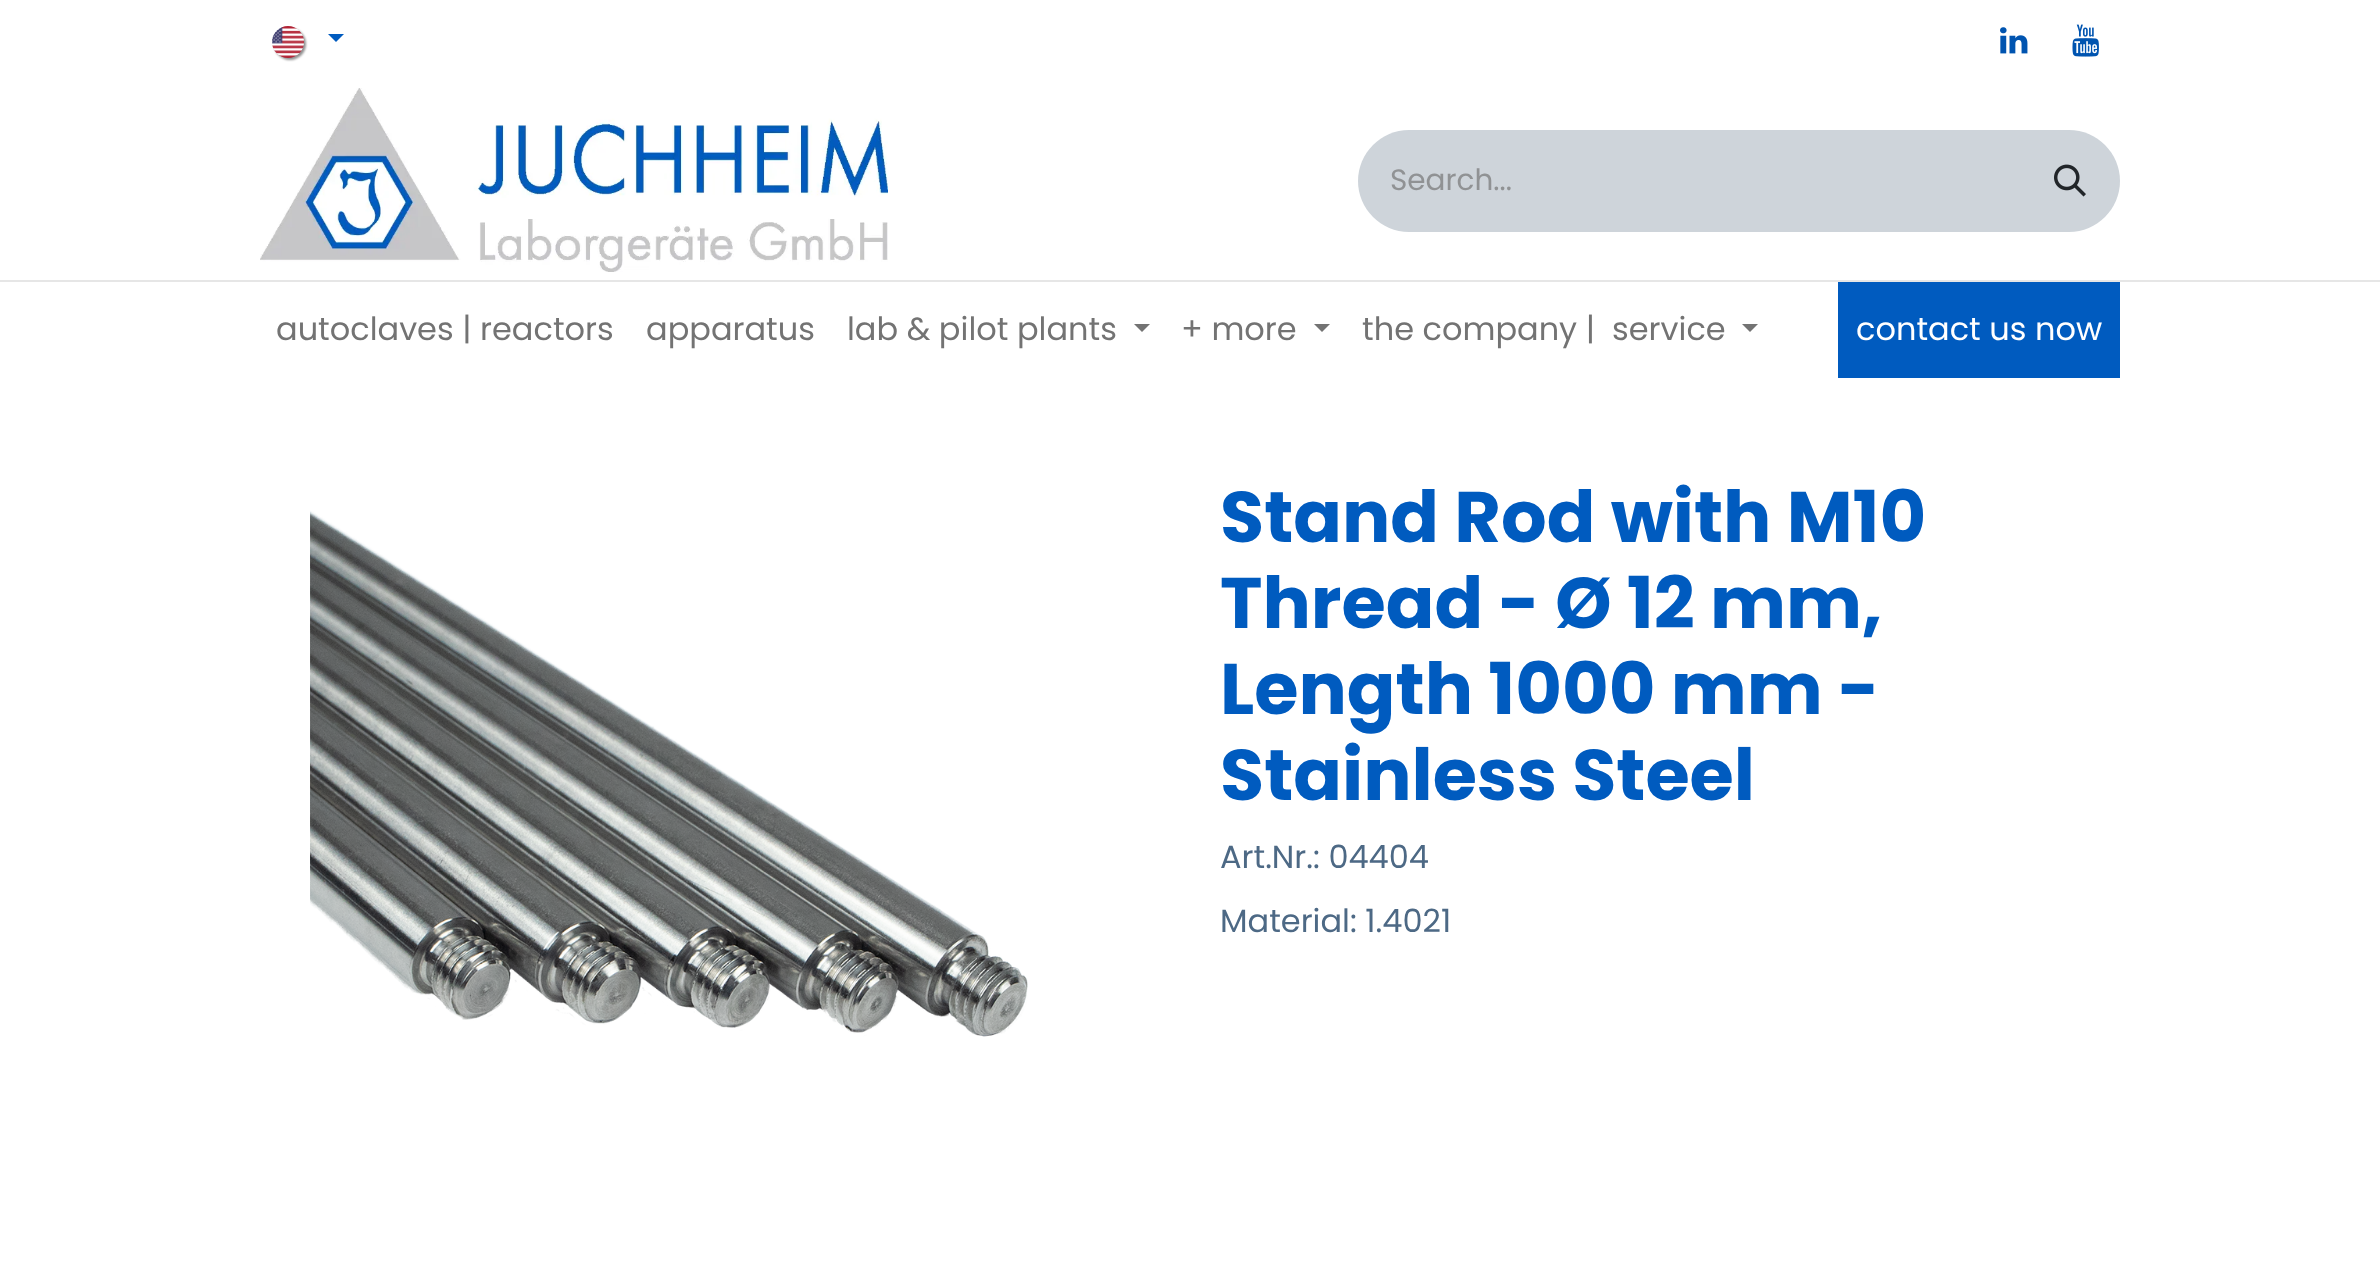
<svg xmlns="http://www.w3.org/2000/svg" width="2380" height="1268">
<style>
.a{font:29.5px Poppins;fill:#909294}
.b{font:32px Poppins;fill:#737373}
.c{font:32px Poppins;fill:#fff}
.d{font:bold 71.75px Poppins;fill:#005bbf}
.e{font:32px Poppins;fill:#4d6985}
</style>
<rect width="100%" height="100%" fill="#fff"/>
<rect fill="#0000006e" filter="blur(1px)" x="274" y="28" width="32" height="32" rx="16"/>
<image href="1.png" x="272" y="26" width="32" height="32"/>
<path fill="#005bbf" d="M328 34h16l-8 8z"/>
<image href="2.png" x="2000" y="27" width="28" height="27"/>
<image href="3.png" x="2072" y="24" width="27" height="33"/>
<image href="4.png" x="260" y="88" width="628" height="184"/>
<path fill="#ced4da" d="M1409 130h613v102h-613c-28 0-51-23-51-51c0-28 23-51 51-51z"/>
<path fill="#ced4da" d="M2020 130h49c28 0 51 23 51 51c0 28-23 51-51 51h-49z"/>
<image href="5.png" x="2054" y="164" width="32" height="33"/>
<path fill="#e6e6e6" d="M0 280h2380v2H0z"/>
<path fill="#737373" d="M1134 324h16l-8 8z"/>
<path fill="#737373" d="M1314 324h16l-8 8z"/>
<path fill="#737373" d="M1742 324h16l-8 8z"/>
<path fill="#005bbf" d="M1838 282h282v96H1838z"/>
<image href="6.png" x="310" y="510" width="718" height="527"/>
<text class="a" x="1390" y="190">Search...</text>
<text class="b" x="276" y="340">autoclaves | reactors</text>
<text class="b" x="646" y="340">apparatus</text>
<text class="b" x="847" y="340">lab &amp; pilot plants</text>
<text class="b" x="1181" y="340">+ more</text>
<text class="b" xml:space="preserve" x="1362" y="340">the company |  service</text>
<text class="c" x="1856" y="340">contact us now</text>
<text class="d" x="1220" y="542">Stand Rod with M10</text>
<text class="d" x="1220" y="628">Thread - Ø 12 mm,</text>
<text class="d" x="1220" y="714">Length 1000 mm -</text>
<text class="d" x="1220" y="800">Stainless Steel</text>
<text class="e" x="1220" y="868">Art.Nr.: 04404</text>
<text class="e" x="1220" y="932">Material: 1.4021</text>
</svg>
